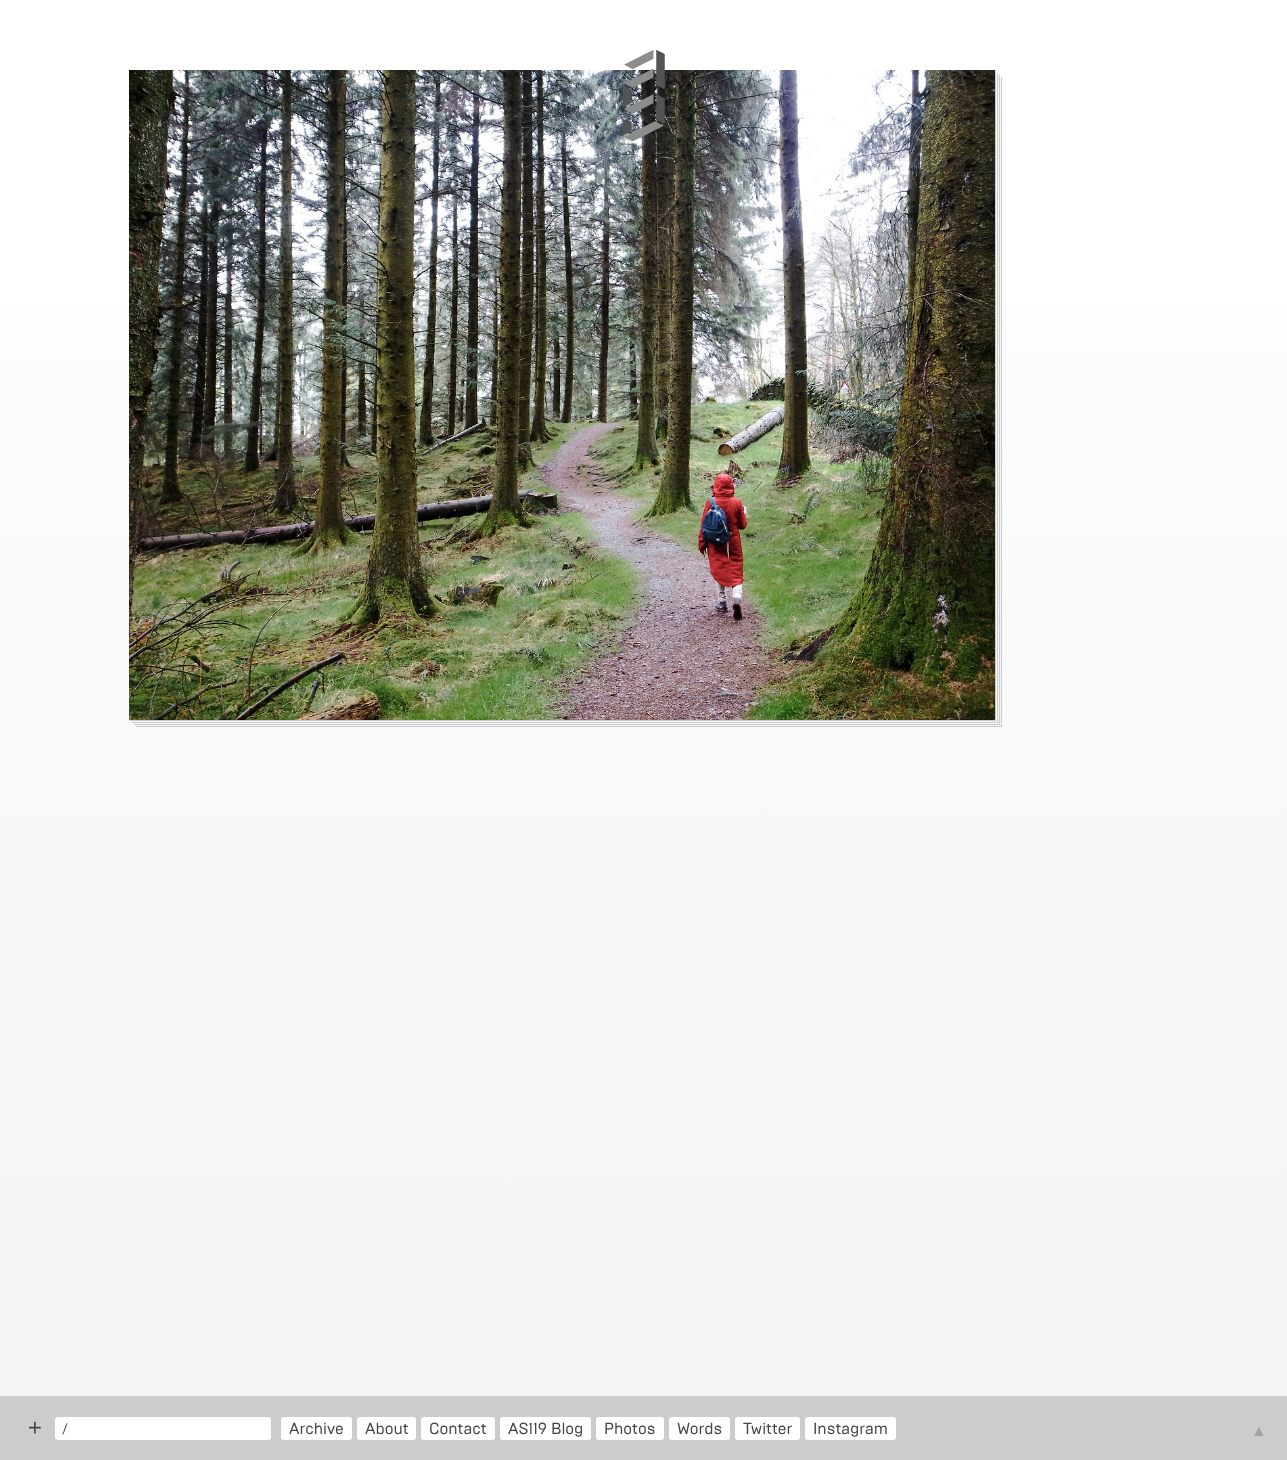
<svg xmlns="http://www.w3.org/2000/svg" width="1287" height="1460">
<style>
.a{font:16px DejaVu Sans;fill:#444}
.b{font:13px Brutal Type;fill:#444}
.c{font:16px Brutal Type;fill:#444}
.d{font:16px Liberation Serif;fill:#a3a3a3}
</style>
<defs>
<linearGradient id="g1" gradientUnits="userSpaceOnUse" x1="643" y1="0" x2="644" y2="1460"><stop offset="0" stop-color="#fff"/><stop offset="1" stop-color="#f3f3f3"/></linearGradient>
</defs>
<rect width="100%" height="100%" fill="#fff"/>
<path fill="url(#g1)" d="M0 304h1287v1092H0z"/>
<path fill="#ccc" d="M136 720v7h866v-650h-7v643z"/>
<path fill="#f6f6f6" d="M135 720v6h866v-650h-6v644z"/>
<path fill="#ccc" d="M134 720v5h866v-650h-5v645z"/>
<path fill="#f6f6f6" d="M133 720v4h866v-650h-4v646z"/>
<path fill="#ccc" d="M132 720v3h866v-650h-3v647z"/>
<path fill="#f6f6f6" d="M131 720v2h866v-650h-2v648z"/>
<path fill="#ccc" d="M130 720v1h866v-650h-1v649z"/>
<image href="2.png" x="129" y="70" width="866" height="650"/>
<image href="1.png" x="623" y="50" width="42" height="91"/>
<path fill="#ccc" d="M0 1396h1287v64H0z"/>
<rect fill="#fff" x="55" y="1417" width="216" height="23" rx="3"/>
<rect fill="#fff" x="281" y="1417" width="71" height="23" rx="3"/>
<rect fill="#fff" x="357" y="1417" width="59" height="23" rx="3"/>
<rect fill="#fff" x="421" y="1417" width="74" height="23" rx="3"/>
<rect fill="#fff" x="500" y="1417" width="91" height="23" rx="3"/>
<rect fill="#fff" x="596" y="1417" width="68" height="23" rx="3"/>
<rect fill="#fff" x="669" y="1417" width="61" height="23" rx="3"/>
<rect fill="#fff" x="735" y="1417" width="65" height="23" rx="3"/>
<rect fill="#fff" x="805" y="1417" width="91" height="23" rx="3"/>
<text class="a" x="26" y="1427" transform="rotate(45 26 1427)">✕</text>
<text class="b" x="62" y="1433">/</text>
<text class="c" x="289" y="1434">Archive</text>
<text class="c" x="365" y="1434">About</text>
<text class="c" x="429" y="1434">Contact</text>
<text class="c" x="508" y="1434">AS119 Blog</text>
<text class="c" x="604" y="1434">Photos</text>
<text class="c" x="677" y="1434">Words</text>
<text class="c" x="743" y="1434">Twitter</text>
<text class="c" x="813" y="1434">Instagram</text>
<text class="d" x="1251" y="1436">▲</text>
</svg>
